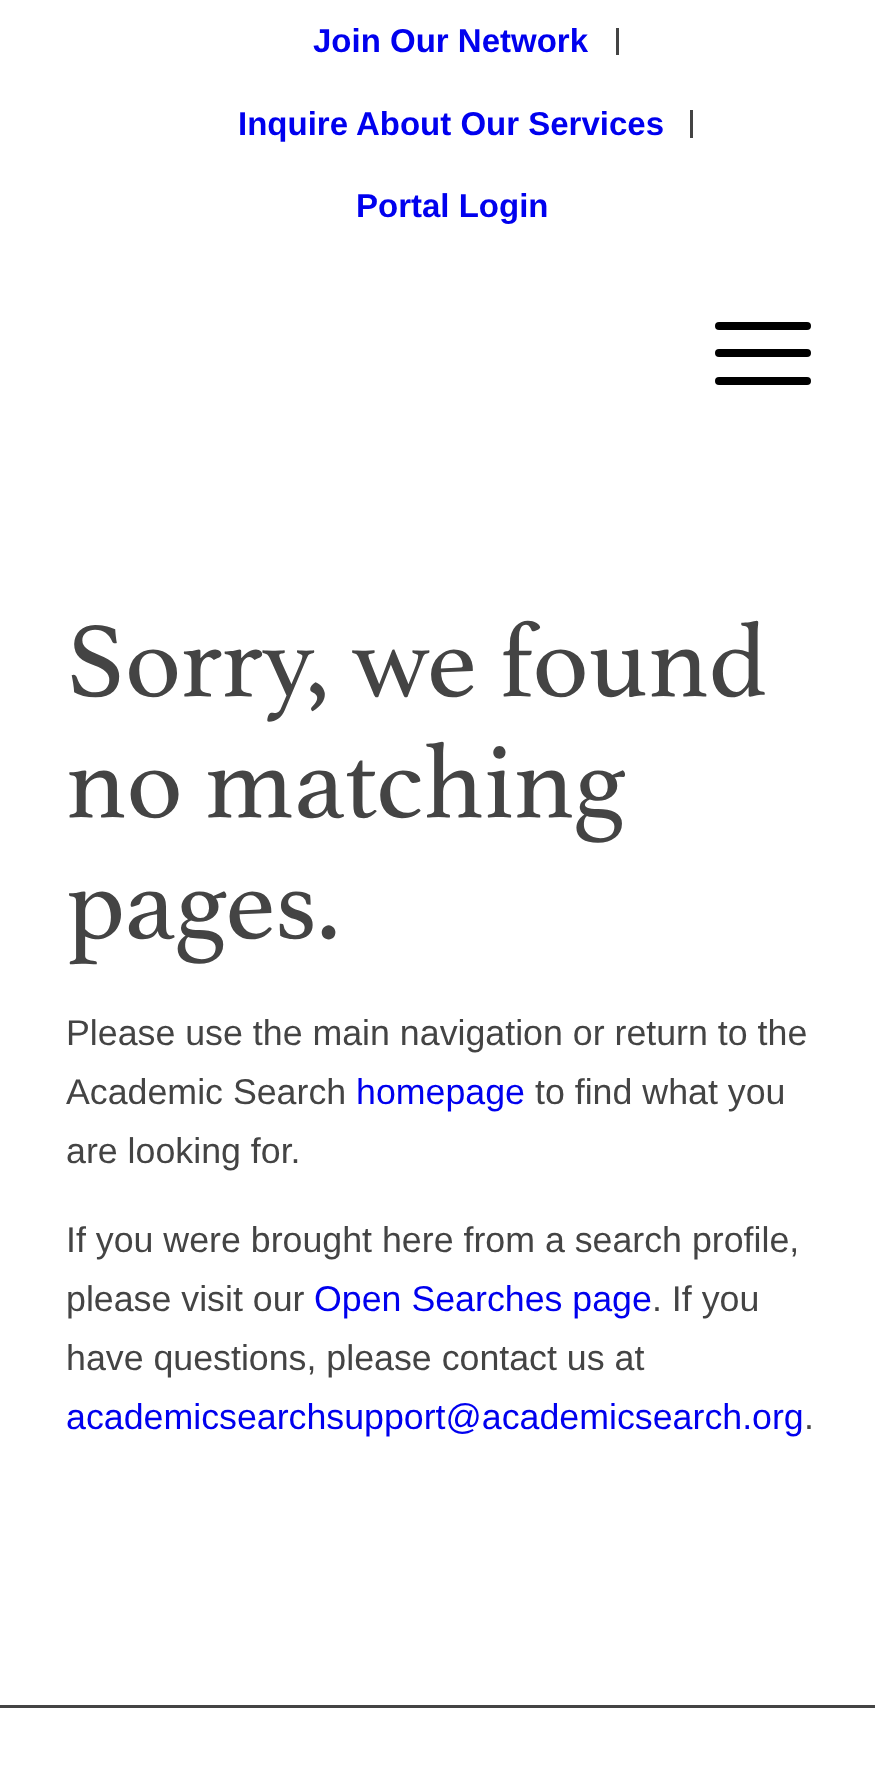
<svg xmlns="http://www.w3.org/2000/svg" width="875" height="1776">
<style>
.a{font:bold 33px Liberation Sans;fill:#00e}
.b{font:110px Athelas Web;fill:#444}
.c{font:35.75px Liberation Sans;fill:#444}
.d{font:35.75px Liberation Sans;fill:#00e}
</style>
<rect width="100%" height="100%" fill="#fff"/>
<path fill="#444" d="M616 28h3v27H616z"/>
<path fill="#444" d="M690 110h3v28H690z"/>
<rect fill="#000" x="715" y="349" width="96" height="8" rx="4"/>
<rect fill="#000" x="715" y="322" width="96" height="8" rx="4"/>
<rect fill="#000" x="715" y="377" width="96" height="8" rx="4"/>
<path fill="#444" d="M0 1705h875v3H0z"/>
<text class="a" x="313" y="52">Join Our Network</text>
<text class="a" x="238" y="135">Inquire About Our Services</text>
<text class="a" x="356" y="217">Portal Login</text>
<text class="b" x="66" y="696">Sorry, we found</text>
<text class="b" x="66" y="817">no matching</text>
<text class="b" x="66" y="938">pages.</text>
<text class="c" x="66" y="1045">Please use the main navigation or return to the</text>
<text class="c" x="66" y="1104">Academic Search</text>
<text class="d" x="356" y="1104">homepage</text>
<text class="c" x="535" y="1104">to find what you</text>
<text class="c" x="66" y="1163">are looking for.</text>
<text class="c" x="66" y="1252">If you were brought here from a search profile,</text>
<text class="c" x="66" y="1311">please visit our</text>
<text class="d" x="314" y="1311">Open Searches page</text>
<text class="c" x="652" y="1311">. If you</text>
<text class="c" x="66" y="1370">have questions, please contact us at</text>
<text class="d" x="66" y="1429">academicsearchsupport@academicsearch.org</text>
<text class="c" x="804" y="1429">.</text>
</svg>
